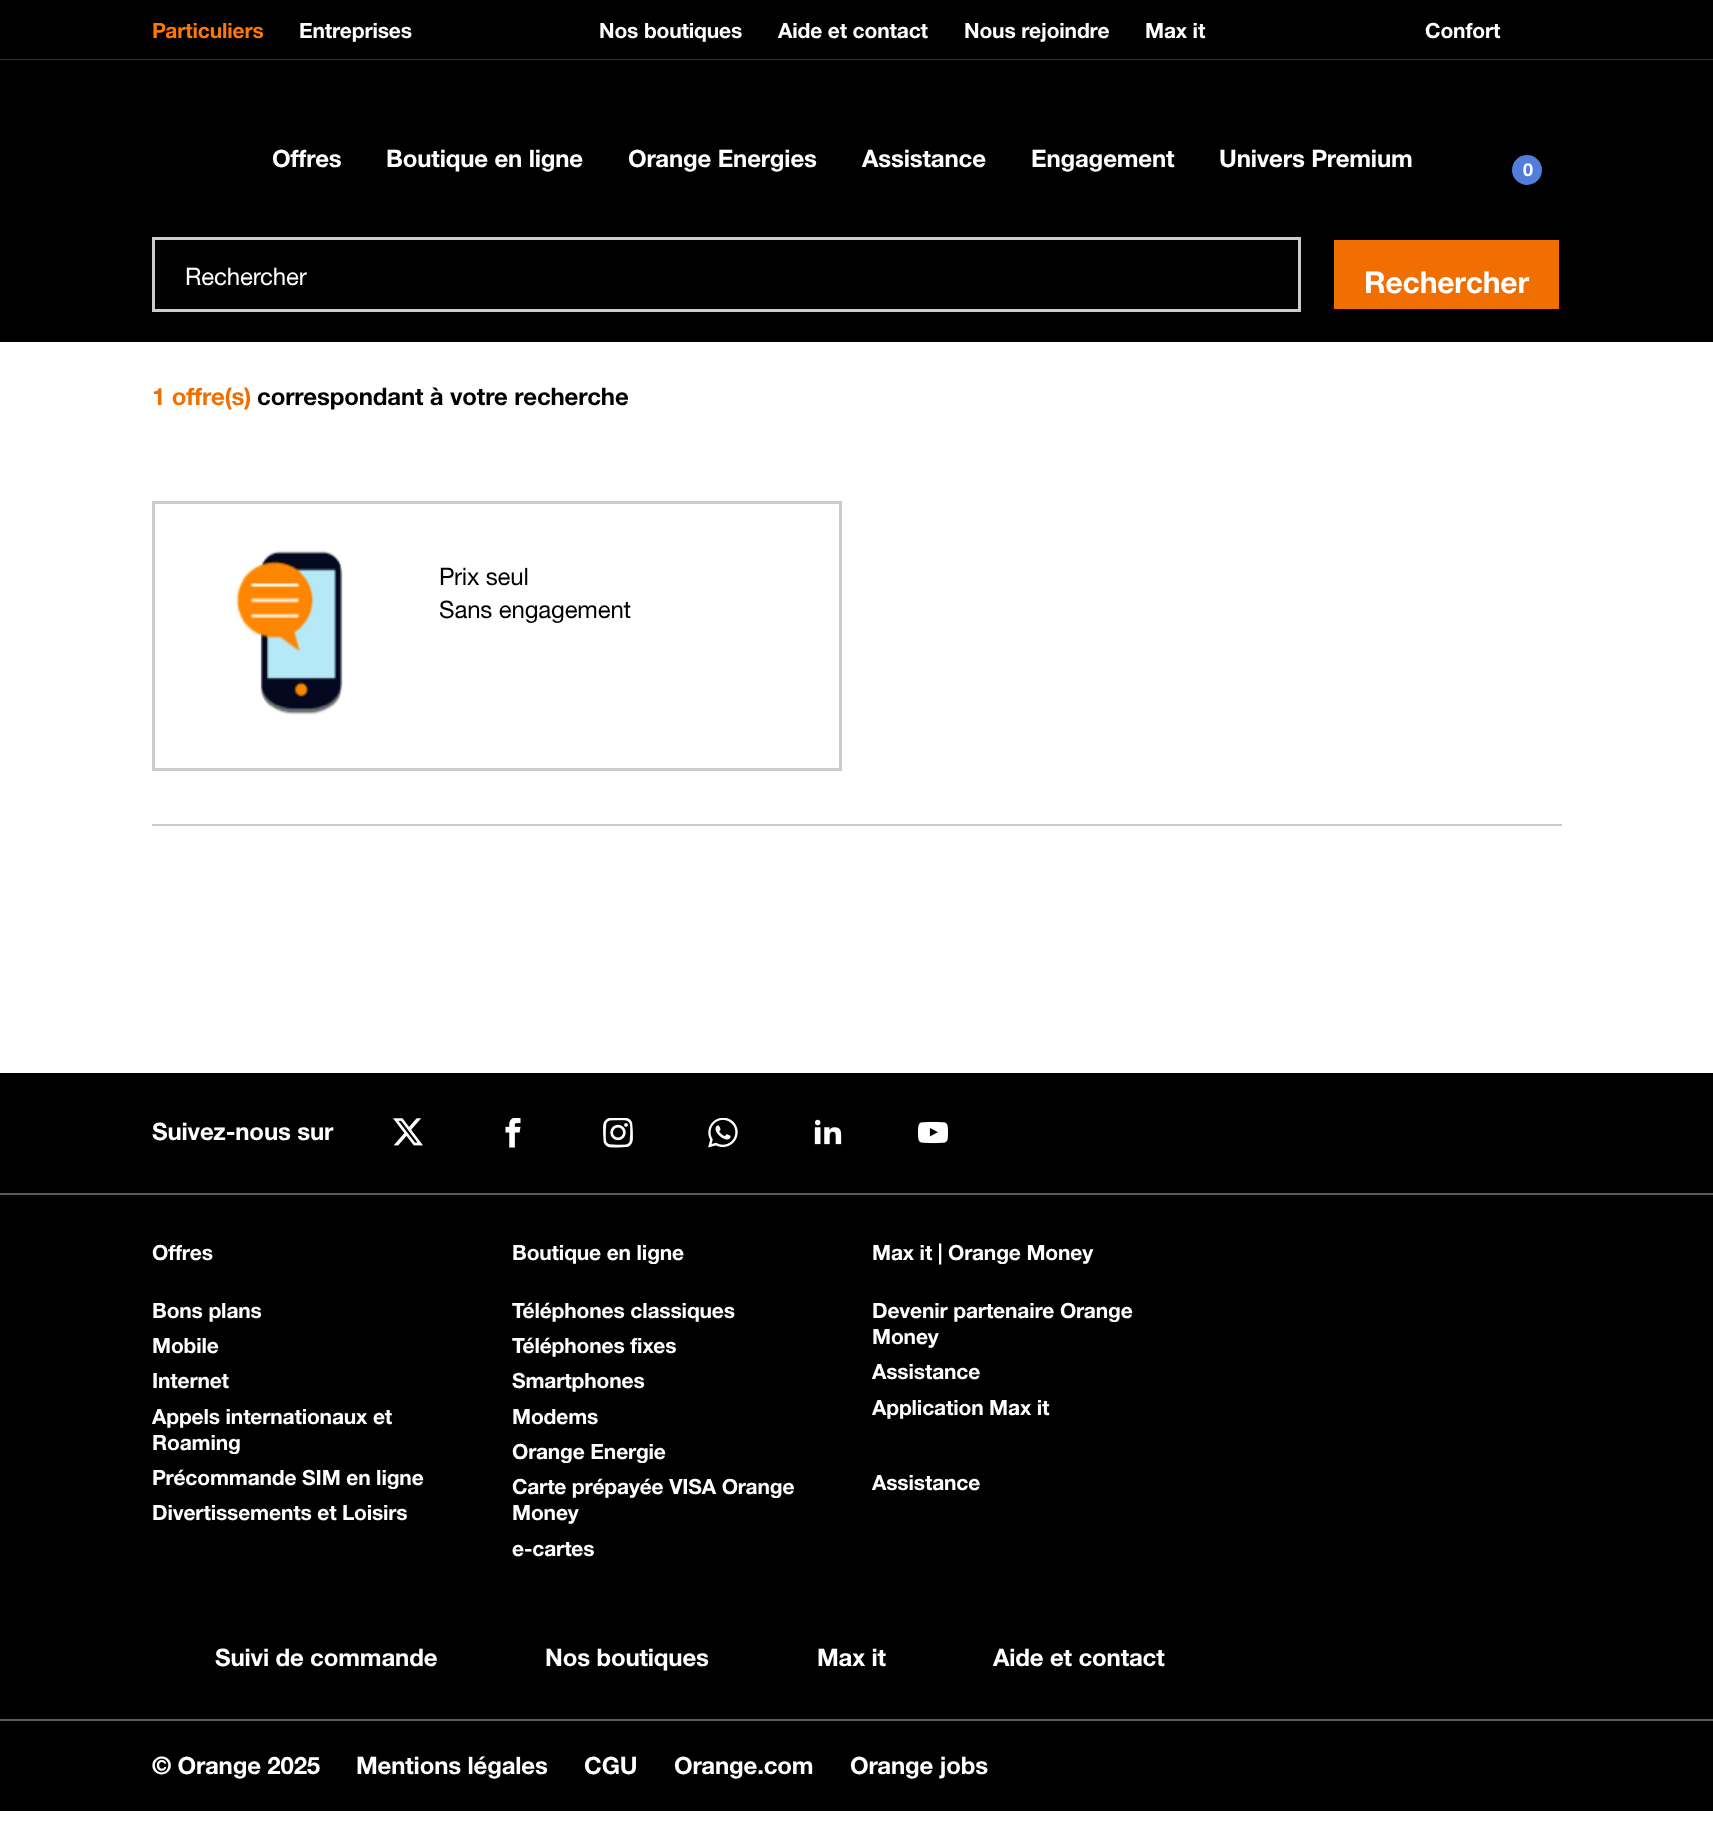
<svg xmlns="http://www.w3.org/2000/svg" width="1713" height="1842">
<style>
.a{font:bold 21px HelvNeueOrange;letter-spacing:-0.15px;fill:#ff7900}
.b{font:bold 21px HelvNeueOrange;letter-spacing:-0.15px;fill:#fff}
.c{font:bold 24px HelvNeueOrange;letter-spacing:-0.15px;fill:#fff}
.d{font:bold 18px HelvNeueOrange;letter-spacing:-0.15px;fill:#fff}
.e{font:24px HelvNeueOrange;letter-spacing:-0.15px;fill:#fff}
.f{font:bold 30px HelvNeueOrange;letter-spacing:-0.15px;fill:#fff}
.g{font:bold 24px HelvNeueOrange;letter-spacing:-0.15px;fill:#f16e00}
.h{font:bold 24px HelvNeueOrange;letter-spacing:-0.15px;fill:#000}
.i{font:24px HelvNeueOrange;letter-spacing:-0.15px;fill:#000}
</style>
<defs>
<clipPath id="clip1"><path d="M512 1293h330v288H512z"/></clipPath>
</defs>
<rect width="100%" height="100%" fill="#fff"/>
<path fill="#000" d="M0 0h1713v59H0z"/>
<path fill="#333" d="M0 59h1713v1H0z"/>
<path fill="#000" d="M0 60h1713v282H0z"/>
<circle fill="#527edb" cx="1527" cy="170" r="15"/>
<path fill="none" stroke="#ccc" stroke-width="3" d="M153.5 238.5h1146v72H153.5z"/>
<path fill="#f16e00" d="M1334 240h225v69H1334z"/>
<path fill="none" stroke="#ccc" stroke-width="3" d="M153.5 502.5h687v267H153.5z"/>
<image href="1.png" x="235" y="550" width="108" height="165"/>
<path fill="#ccc" d="M152 824h1410v2H152z"/>
<path fill="#000" d="M0 1073h1713v738H0z"/>
<path fill="#595959" d="M0 1193h1713v2H0z"/>
<image href="2.png" x="393" y="1118" width="30" height="28"/>
<image href="3.png" x="505" y="1118" width="16" height="30"/>
<image href="4.png" x="603" y="1118" width="30" height="30"/>
<image href="5.png" x="708" y="1118" width="30" height="30"/>
<image href="6.png" x="814" y="1119" width="28" height="26"/>
<image href="7.png" x="918" y="1121" width="30" height="23"/>
<path fill="#595959" d="M0 1719h1713v2H0z"/>
<text class="a" x="152" y="38">Particuliers</text>
<text class="b" x="299" y="38">Entreprises</text>
<text class="b" x="599" y="38">Nos boutiques</text>
<text class="b" x="778" y="38">Aide et contact</text>
<text class="b" x="964" y="38">Nous rejoindre</text>
<text class="b" x="1145" y="38">Max it</text>
<text class="b" x="1425" y="38">Confort</text>
<text class="c" x="272" y="167">Offres</text>
<text class="c" x="386" y="167">Boutique en ligne</text>
<text class="c" x="628" y="167">Orange Energies</text>
<text class="c" x="862" y="167">Assistance</text>
<text class="c" x="1031" y="167">Engagement</text>
<text class="c" x="1219" y="167">Univers Premium</text>
<text class="d" x="1523" y="176">0</text>
<text class="e" x="185" y="285">Rechercher</text>
<text class="f" x="1364" y="293">Rechercher</text>
<text class="g" x="152" y="405">1 offre(s)</text>
<text class="h" x="257" y="405">correspondant à votre recherche</text>
<text class="i" x="439" y="585">Prix seul</text>
<text class="i" x="439" y="618">Sans engagement</text>
<text class="c" x="152" y="1140">Suivez-nous sur</text>
<text class="b" x="152" y="1260">Offres</text>
<text class="b" x="152" y="1318">Bons plans</text>
<text class="b" x="152" y="1353">Mobile</text>
<text class="b" x="152" y="1388">Internet</text>
<text class="b" x="152" y="1424">Appels internationaux et</text>
<text class="b" x="152" y="1450">Roaming</text>
<text class="b" x="152" y="1485">Précommande SIM en ligne</text>
<text class="b" x="152" y="1520">Divertissements et Loisirs</text>
<text class="b" x="512" y="1260">Boutique en ligne</text>
<g clip-path="url(#clip1)">
<text class="b" x="512" y="1318">Téléphones classiques</text>
<text class="b" x="512" y="1353">Téléphones fixes</text>
</g>
<text class="b" x="512" y="1388">Smartphones</text>
<text class="b" x="512" y="1424">Modems</text>
<text class="b" x="512" y="1459">Orange Energie</text>
<text class="b" x="512" y="1494">Carte prépayée VISA Orange</text>
<text class="b" x="512" y="1520">Money</text>
<text class="b" x="512" y="1556">e-cartes</text>
<text class="b" x="872" y="1260">Max it | Orange Money</text>
<text class="b" x="872" y="1318">Devenir partenaire Orange</text>
<text class="b" x="872" y="1344">Money</text>
<text class="b" x="872" y="1379">Assistance</text>
<text class="b" x="872" y="1415">Application Max it</text>
<text class="b" x="872" y="1490">Assistance</text>
<text class="c" x="215" y="1666">Suivi de commande</text>
<text class="c" x="545" y="1666">Nos boutiques</text>
<text class="c" x="817" y="1666">Max it</text>
<text class="c" x="993" y="1666">Aide et contact</text>
<text class="c" x="152" y="1774">© Orange 2025</text>
<text class="c" x="356" y="1774">Mentions légales</text>
<text class="c" x="584" y="1774">CGU</text>
<text class="c" x="674" y="1774">Orange.com</text>
<text class="c" x="850" y="1774">Orange jobs</text>
</svg>
